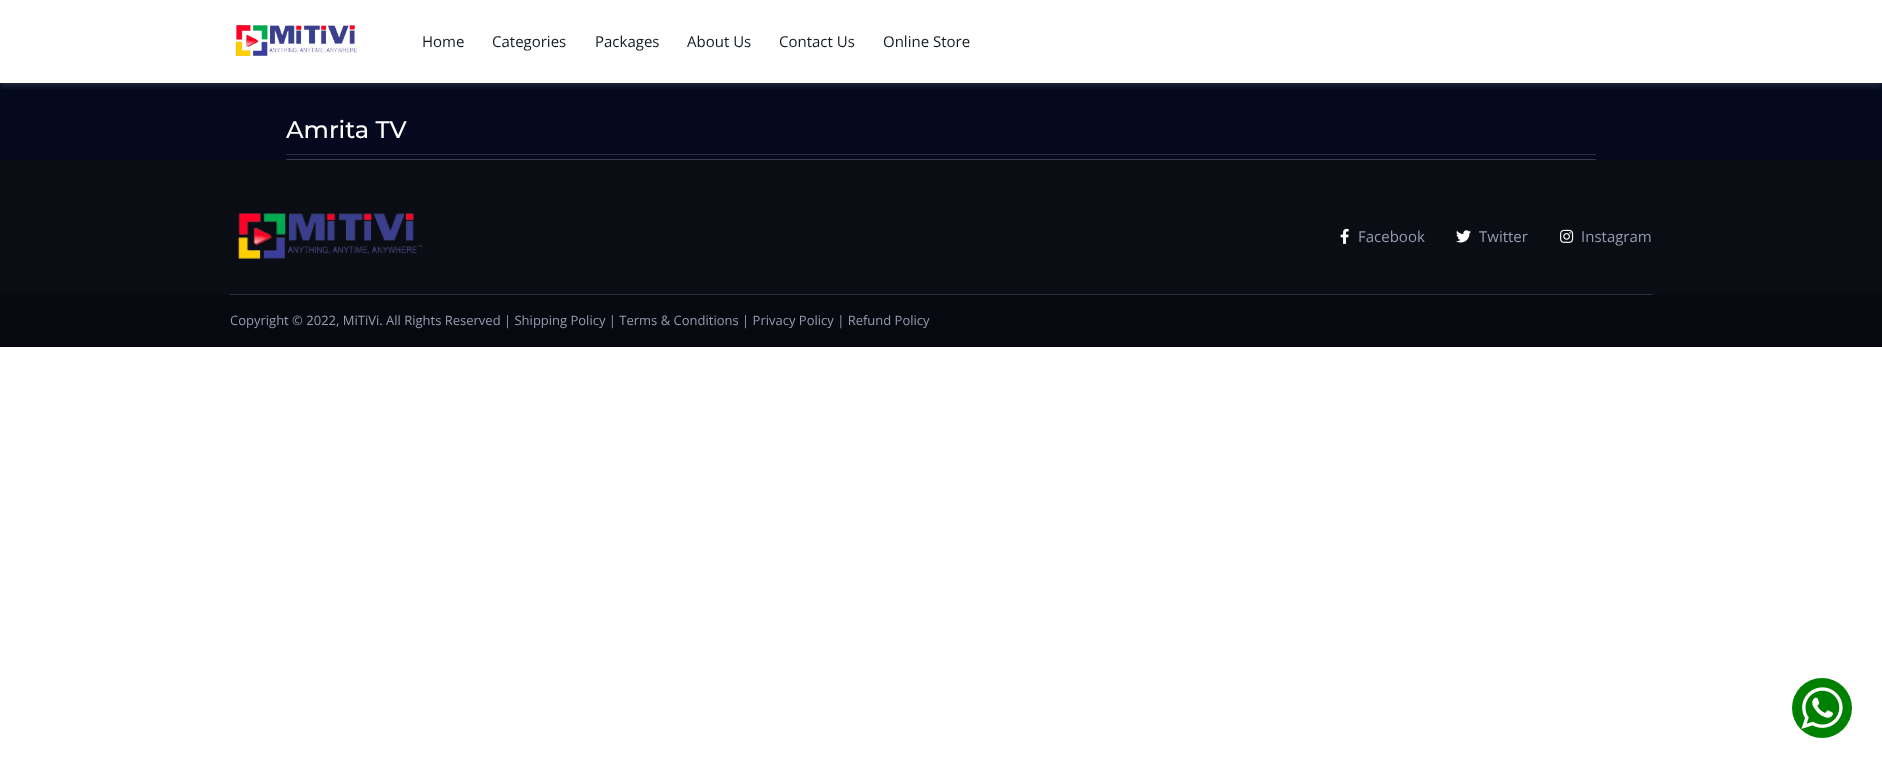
<svg xmlns="http://www.w3.org/2000/svg" width="1882" height="773">
<style>
.a{font:15px Open Sans;fill:#121a21}
.b{font:500 24px Montserrat;fill:#fff}
.c{font:15px Open Sans;fill:#949cb0}
.d{font:13px Open Sans;fill:#949cb0}
</style>
<defs>
<clipPath id="clip1"><path d="M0 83h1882v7H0z"/></clipPath>
</defs>
<rect width="100%" height="100%" fill="#fff"/>
<path fill="#04091f" d="M0 83h1882v77H0z"/>
<g clip-path="url(#clip1)">
<path fill="#8c98a440" filter="blur(3px)" d="M0 3h1882v83H0z"/>
</g>
<image href="1.png" x="235" y="25" width="126" height="31"/>
<path fill="#373c49" d="M286 159h1310v1H286z"/>
<path fill="#2a2e3c" d="M286 154h1310v1H286z"/>
<path fill="#0a0d14" d="M0 160h1882v135H0z"/>
<path fill="#2d323f" d="M230 294h1422v1H230z"/>
<image href="2.png" x="237" y="213" width="186" height="46"/>
<image href="3.png" x="1340" y="228" width="9" height="16"/>
<image href="4.png" x="1456" y="230" width="15" height="13"/>
<image href="5.png" x="1560" y="229" width="14" height="14"/>
<path fill="#06090f" d="M0 295h1882v52H0z"/>
<circle fill="#008000" cx="1822" cy="708" r="30"/>
<image href="6.png" x="1801" y="687" width="42" height="42"/>
<text class="a" x="422" y="47">Home</text>
<text class="a" x="492" y="47">Categories</text>
<text class="a" x="595" y="47">Packages</text>
<text class="a" x="687" y="47">About Us</text>
<text class="a" x="779" y="47">Contact Us</text>
<text class="a" x="883" y="47">Online Store</text>
<text class="b" x="286" y="138">Amrita TV</text>
<text class="c" x="1358" y="242">Facebook</text>
<text class="c" x="1479" y="242">Twitter</text>
<text class="c" x="1581" y="242">Instagram</text>
<text class="d" x="230" y="325">Copyright © 2022, MiTiVi. All Rights Reserved | Shipping Policy | Terms &amp; Conditions | Privacy Policy | Refund Policy</text>
</svg>
